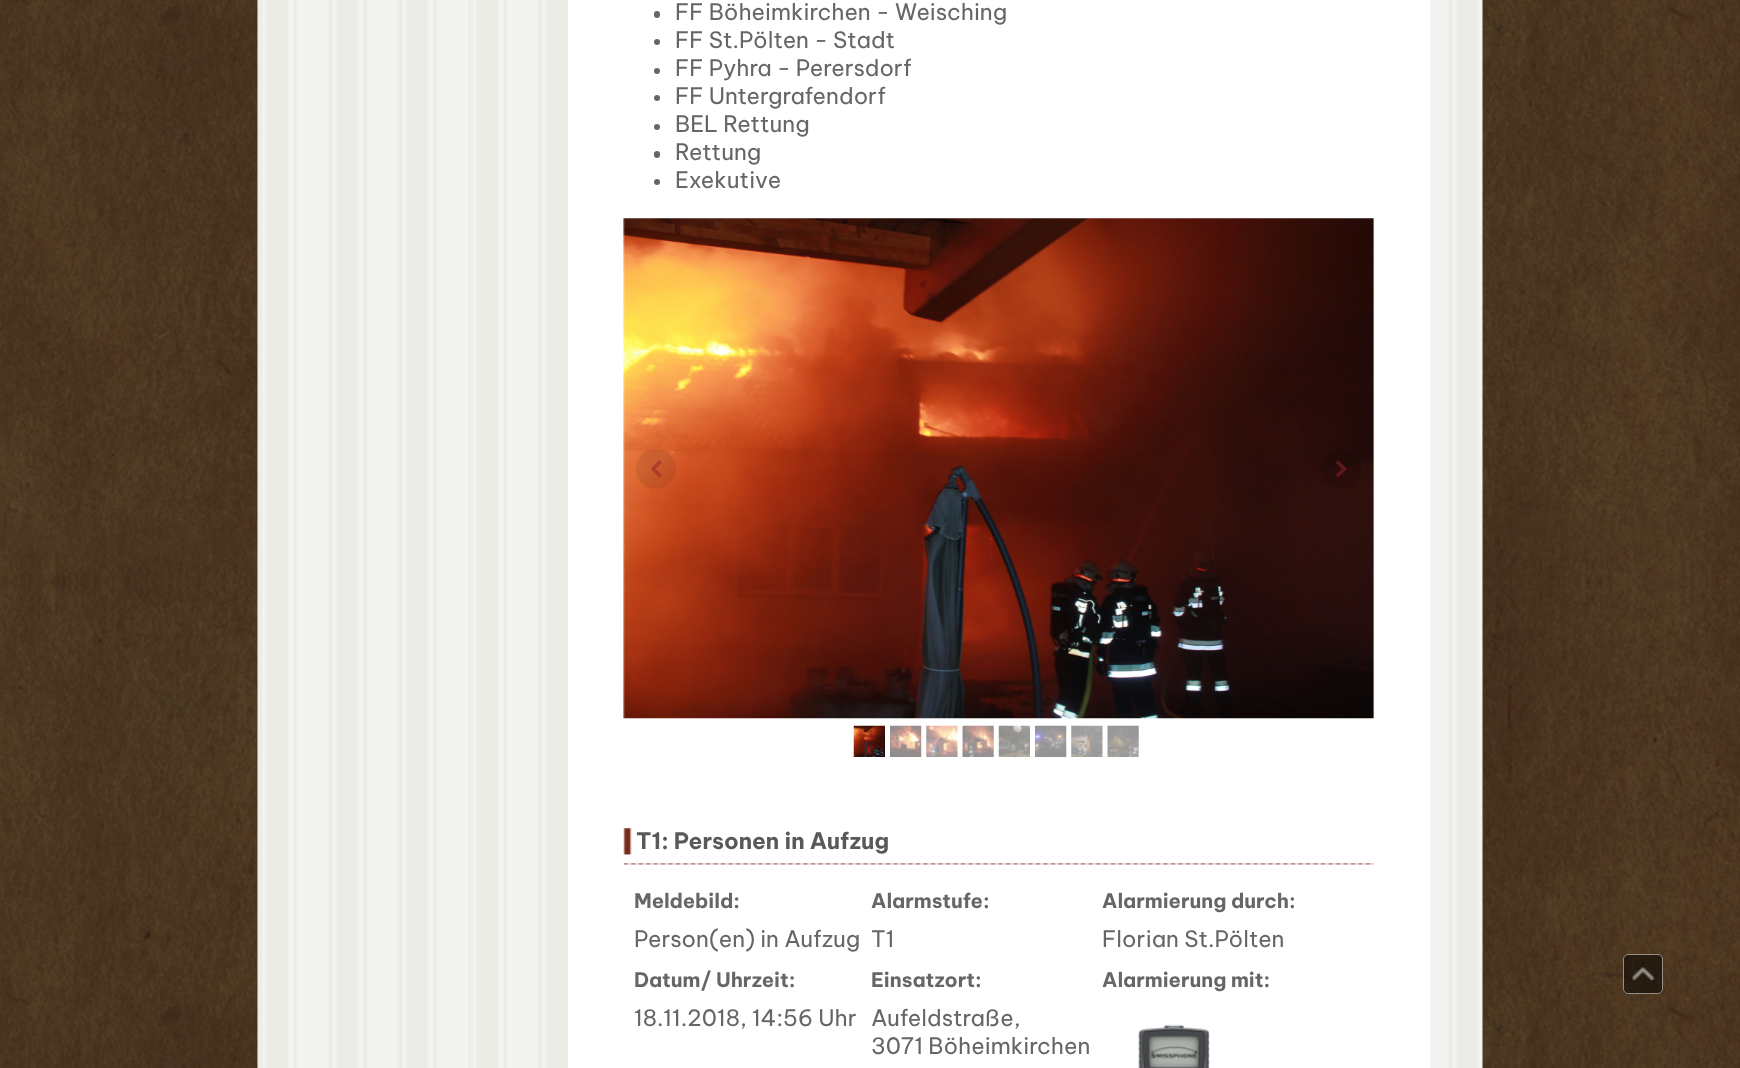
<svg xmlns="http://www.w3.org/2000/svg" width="1740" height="1068">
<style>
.a{font:22.5px Be Vietnam Pro;fill:#666}
.b{font:bold 22.5px Be Vietnam Pro;fill:#5a5858}
.c{font:bold 20px Be Vietnam Pro;fill:#666}
</style>
<rect width="100%" height="100%" fill="#fff"/>
<image href="1.png" x="0" y="0" width="1740" height="1068"/>
<image href="2.png" x="257" y="0" width="1226" height="1068"/>
<path fill="#fff" d="M568 0h862v1068H568z"/>
<rect fill="#666" x="654" y="11" width="6" height="7" rx="3"/>
<circle fill="#666" cx="657" cy="42" r="3"/>
<circle fill="#666" cx="657" cy="71" r="3"/>
<circle fill="#666" cx="657" cy="98" r="3"/>
<circle fill="#666" cx="657" cy="127" r="3"/>
<rect fill="#666" x="654" y="151" width="6" height="7" rx="3"/>
<circle fill="#666" cx="657" cy="182" r="3"/>
<image href="3.png" x="623" y="218" width="751" height="501"/>
<circle fill="#00000012" cx="656" cy="469" r="20"/>
<image href="4.png" x="651" y="460" width="11" height="18"/>
<circle fill="#00000012" cx="1341" cy="469" r="20"/>
<image href="5.png" x="1335" y="460" width="12" height="18"/>
<image href="6.png" x="853" y="725" width="32" height="32"/>
<image href="7.png" x="890" y="725" width="32" height="32"/>
<image href="8.png" x="926" y="725" width="32" height="32"/>
<image href="9.png" x="962" y="725" width="32" height="32"/>
<image href="10.png" x="998" y="725" width="32" height="32"/>
<image href="11.png" x="1035" y="725" width="32" height="32"/>
<image href="12.png" x="1071" y="725" width="32" height="32"/>
<image href="13.png" x="1107" y="725" width="32" height="32"/>
<image href="14.png" x="623" y="828" width="751" height="37"/>
<image href="15.png" x="1138" y="1024" width="72" height="44"/>
<rect fill="#00000080" x="1623" y="954" width="40" height="40" rx="5"/>
<rect fill="none" stroke="#ffffff80" x="1623.5" y="954.5" width="39" height="39" rx="4.5"/>
<image href="16.png" x="1632" y="967" width="23" height="14"/>
<text class="a" x="675" y="20">FF Böheimkirchen - Weisching</text>
<text class="a" x="675" y="48">FF St.Pölten - Stadt</text>
<text class="a" x="675" y="76">FF Pyhra - Perersdorf</text>
<text class="a" x="675" y="104">FF Untergrafendorf</text>
<text class="a" x="675" y="132">BEL Rettung</text>
<text class="a" x="675" y="160">Rettung</text>
<text class="a" x="675" y="188">Exekutive</text>
<text class="b" x="636" y="849">T1: Personen in Aufzug</text>
<text class="c" x="634" y="908">Meldebild:</text>
<text class="c" x="871" y="908">Alarmstufe:</text>
<text class="c" x="1102" y="908">Alarmierung durch:</text>
<text class="a" x="634" y="947">Person(en) in Aufzug</text>
<text class="a" x="871" y="947">T1</text>
<text class="a" x="1102" y="947">Florian St.Pölten</text>
<text class="c" x="634" y="987">Datum/ Uhrzeit:</text>
<text class="c" x="871" y="987">Einsatzort:</text>
<text class="c" x="1102" y="987">Alarmierung mit:</text>
<text class="a" x="634" y="1026">18.11.2018, 14:56 Uhr</text>
<text class="a" x="871" y="1026">Aufeldstraße,</text>
<text class="a" x="871" y="1054">3071 Böheimkirchen</text>
</svg>
